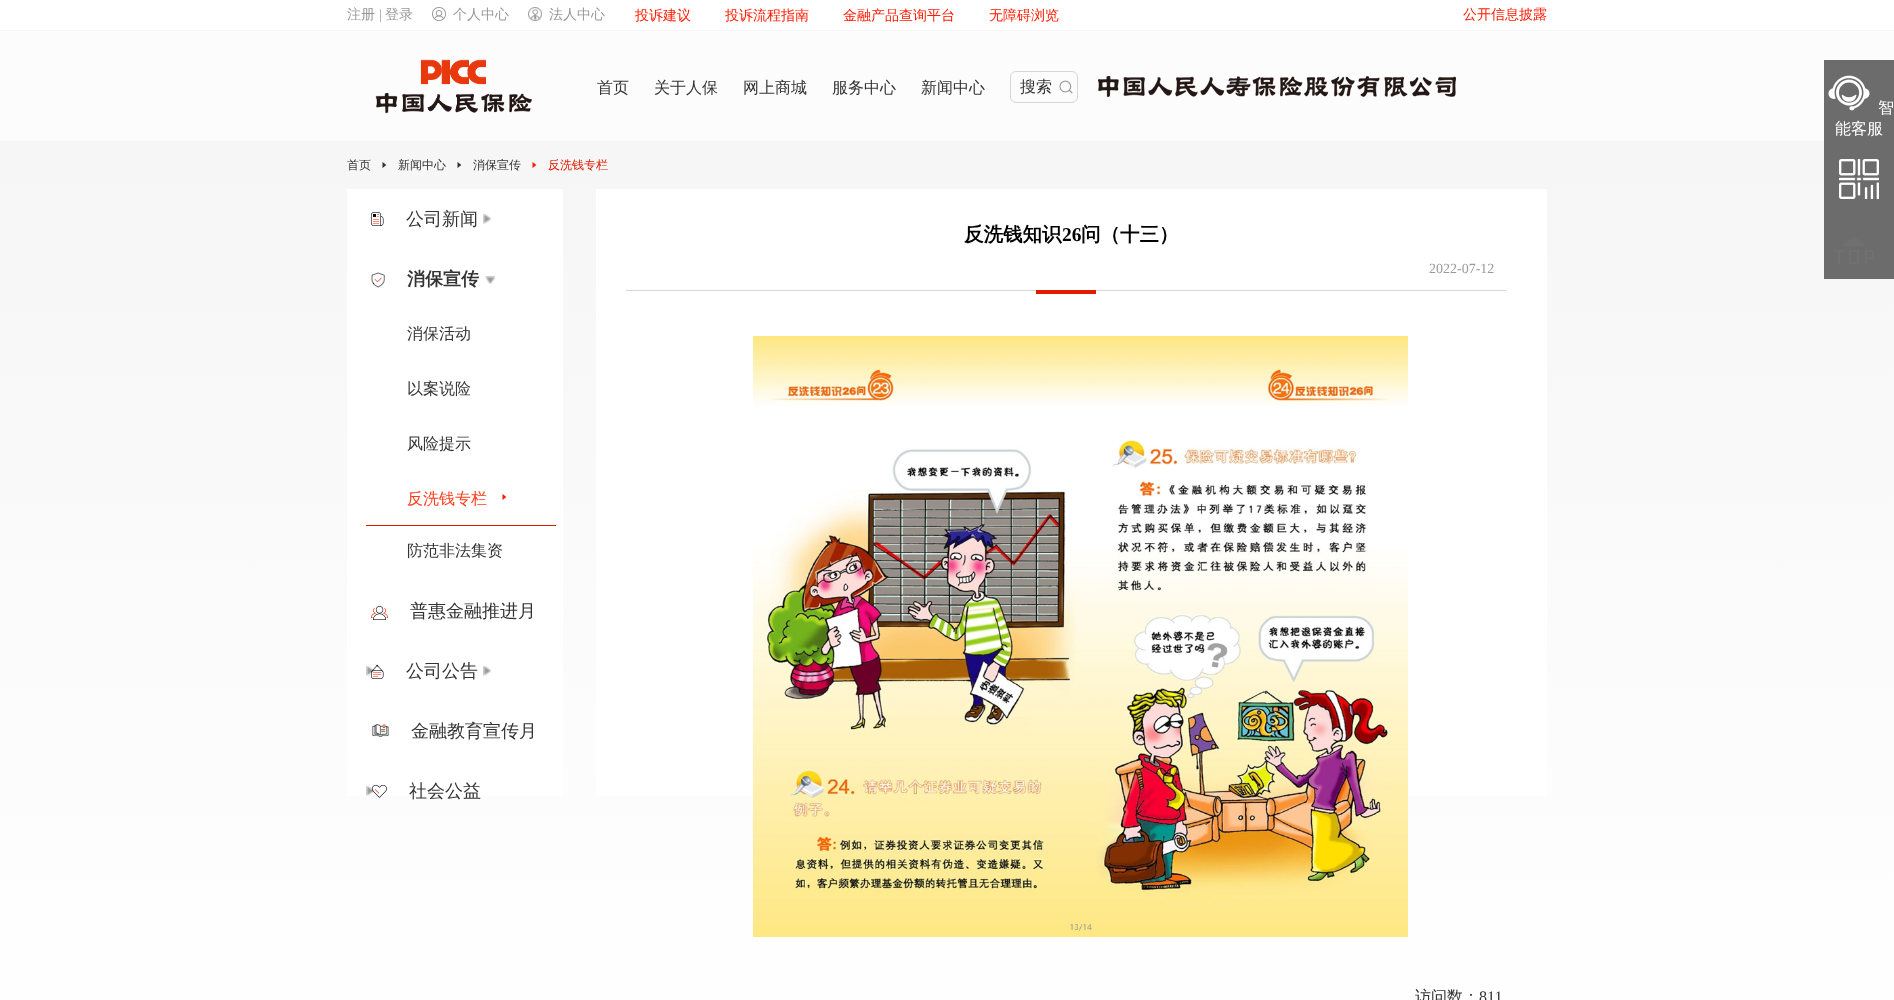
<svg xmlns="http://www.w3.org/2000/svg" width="1894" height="1000">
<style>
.a{font:500 14px WenQuanYi Zen Hei;fill:#999}
.b{font:14px Liberation Serif;fill:#999}
.c{font:500 14px WenQuanYi Zen Hei;fill:#ff1a00}
.d{font:500 16px WenQuanYi Zen Hei;fill:#333}
.e{font:500 16px WenQuanYi Zen Hei;fill:#fff}
.f{font:500 12px WenQuanYi Zen Hei;fill:#333}
.g{font:500 12px WenQuanYi Zen Hei;fill:#e11a00}
.h{font:500 18px WenQuanYi Zen Hei;fill:#333}
.i{font:bold 18px WenQuanYi Zen Hei;fill:#333}
.j{font:500 16px WenQuanYi Zen Hei;fill:#ff3c1c}
.k{font:bold 19.5px WenQuanYi Zen Hei;fill:#000}
.l{font:bold 19.5px Liberation Serif;fill:#000}
.m{font:16px Liberation Serif;fill:#333}
</style>
<defs>
<linearGradient id="g1" gradientUnits="userSpaceOnUse" x1="947" y1="141" x2="947" y2="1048"><stop offset="0" stop-color="#f6f6f6"/><stop offset="1" stop-color="#fff"/></linearGradient>
</defs>
<rect width="100%" height="100%" fill="#fcfcfc"/>
<path fill="#fff" d="M0 0h1894v30H0z"/>
<path fill="#f5f5f5" d="M0 30h1894v1H0z"/>
<image href="1.png" x="432" y="7" width="14" height="14"/>
<image href="2.png" x="528" y="7" width="14" height="14"/>
<image href="3.png" x="375" y="59" width="157" height="55"/>
<rect fill="none" stroke="#d7d7d7" x="1010.5" y="71.5" width="67" height="31" rx="5.5"/>
<image href="4.png" x="1059" y="80" width="14" height="14"/>
<image href="5.png" x="1098" y="76" width="358" height="21"/>
<path fill="url(#g1)" d="M0 141h1894v859H0z"/>
<path fill="#6d6c6c" d="M1824 60h70v219H1824z"/>
<image href="6.png" x="1834" y="237" width="40" height="27"/>
<image href="7.png" x="1828" y="75" width="42" height="36"/>
<image href="8.png" x="1839" y="159" width="40" height="40"/>
<image href="9.png" x="382" y="162" width="5" height="6"/>
<image href="9.png" x="457" y="162" width="5" height="6"/>
<image href="10.png" x="532" y="162" width="5" height="6"/>
<path fill="#fff" d="M347 189h216v607H347z"/>
<image href="11.png" x="371" y="212" width="13" height="14"/>
<image href="12.png" x="483" y="214" width="9" height="10"/>
<image href="13.png" x="371" y="272" width="14" height="16"/>
<image href="14.png" x="485" y="276" width="10" height="9"/>
<path fill="#e11a00" d="M366 525h190v1H366z"/>
<image href="15.png" x="502" y="494" width="5" height="6"/>
<image href="16.png" x="371" y="606" width="17" height="14"/>
<image href="12.png" x="366" y="666" width="9" height="10"/>
<image href="17.png" x="371" y="664" width="13" height="15"/>
<image href="12.png" x="483" y="666" width="9" height="10"/>
<image href="18.png" x="372" y="724" width="17" height="13"/>
<image href="12.png" x="366" y="786" width="9" height="10"/>
<image href="19.png" x="371" y="784" width="16" height="14"/>
<path fill="#fff" d="M596 189h951v607H596z"/>
<path fill="#d7d7d7" d="M626 290h880v1H626z"/>
<path fill="#e11a00" d="M1036 290h60v4H1036z"/>
<image href="20.png" x="753" y="336" width="655" height="601"/>
<text class="a" x="347" y="19">注册</text>
<text class="b" x="379" y="19">|</text>
<text class="a" x="385" y="19">登录</text>
<text class="a" x="453" y="19">个人中心</text>
<text class="a" x="549" y="19">法人中心</text>
<text class="c" x="635" y="20">投诉建议</text>
<text class="c" x="725" y="20">投诉流程指南</text>
<text class="c" x="843" y="20">金融产品查询平台</text>
<text class="c" x="989" y="20">无障碍浏览</text>
<text class="c" x="1463" y="19">公开信息披露</text>
<text class="d" x="597" y="93">首页</text>
<text class="d" x="654" y="93">关于人保</text>
<text class="d" x="743" y="93">网上商城</text>
<text class="d" x="832" y="93">服务中心</text>
<text class="d" x="921" y="93">新闻中心</text>
<text class="d" x="1020" y="92">搜索</text>
<text class="e" x="1878" y="113">智</text>
<text class="e" x="1835" y="134">能客服</text>
<text class="f" x="347" y="169">首页</text>
<text class="f" x="398" y="169">新闻中心</text>
<text class="f" x="473" y="169">消保宣传</text>
<text class="g" x="548" y="169">反洗钱专栏</text>
<text class="h" x="406" y="225">公司新闻</text>
<text class="i" x="407" y="285">消保宣传</text>
<text class="d" x="407" y="339">消保活动</text>
<text class="d" x="407" y="394">以案说险</text>
<text class="d" x="407" y="449">风险提示</text>
<text class="j" x="407" y="504">反洗钱专栏</text>
<text class="d" x="407" y="556">防范非法集资</text>
<text class="h" x="410" y="617">普惠金融推进月</text>
<text class="h" x="406" y="677">公司公告</text>
<text class="h" x="411" y="737">金融教育宣传月</text>
<text class="h" x="409" y="797">社会公益</text>
<text class="k" x="964" y="241">反洗钱知识</text>
<text class="l" x="1062" y="241">26</text>
<text class="k" x="1081" y="241">问（十三）</text>
<text class="b" x="1429" y="273">2022-07-12</text>
<text class="d" x="1415" y="1002">访问数：</text>
<text class="m" x="1479" y="1002">811</text>
</svg>
